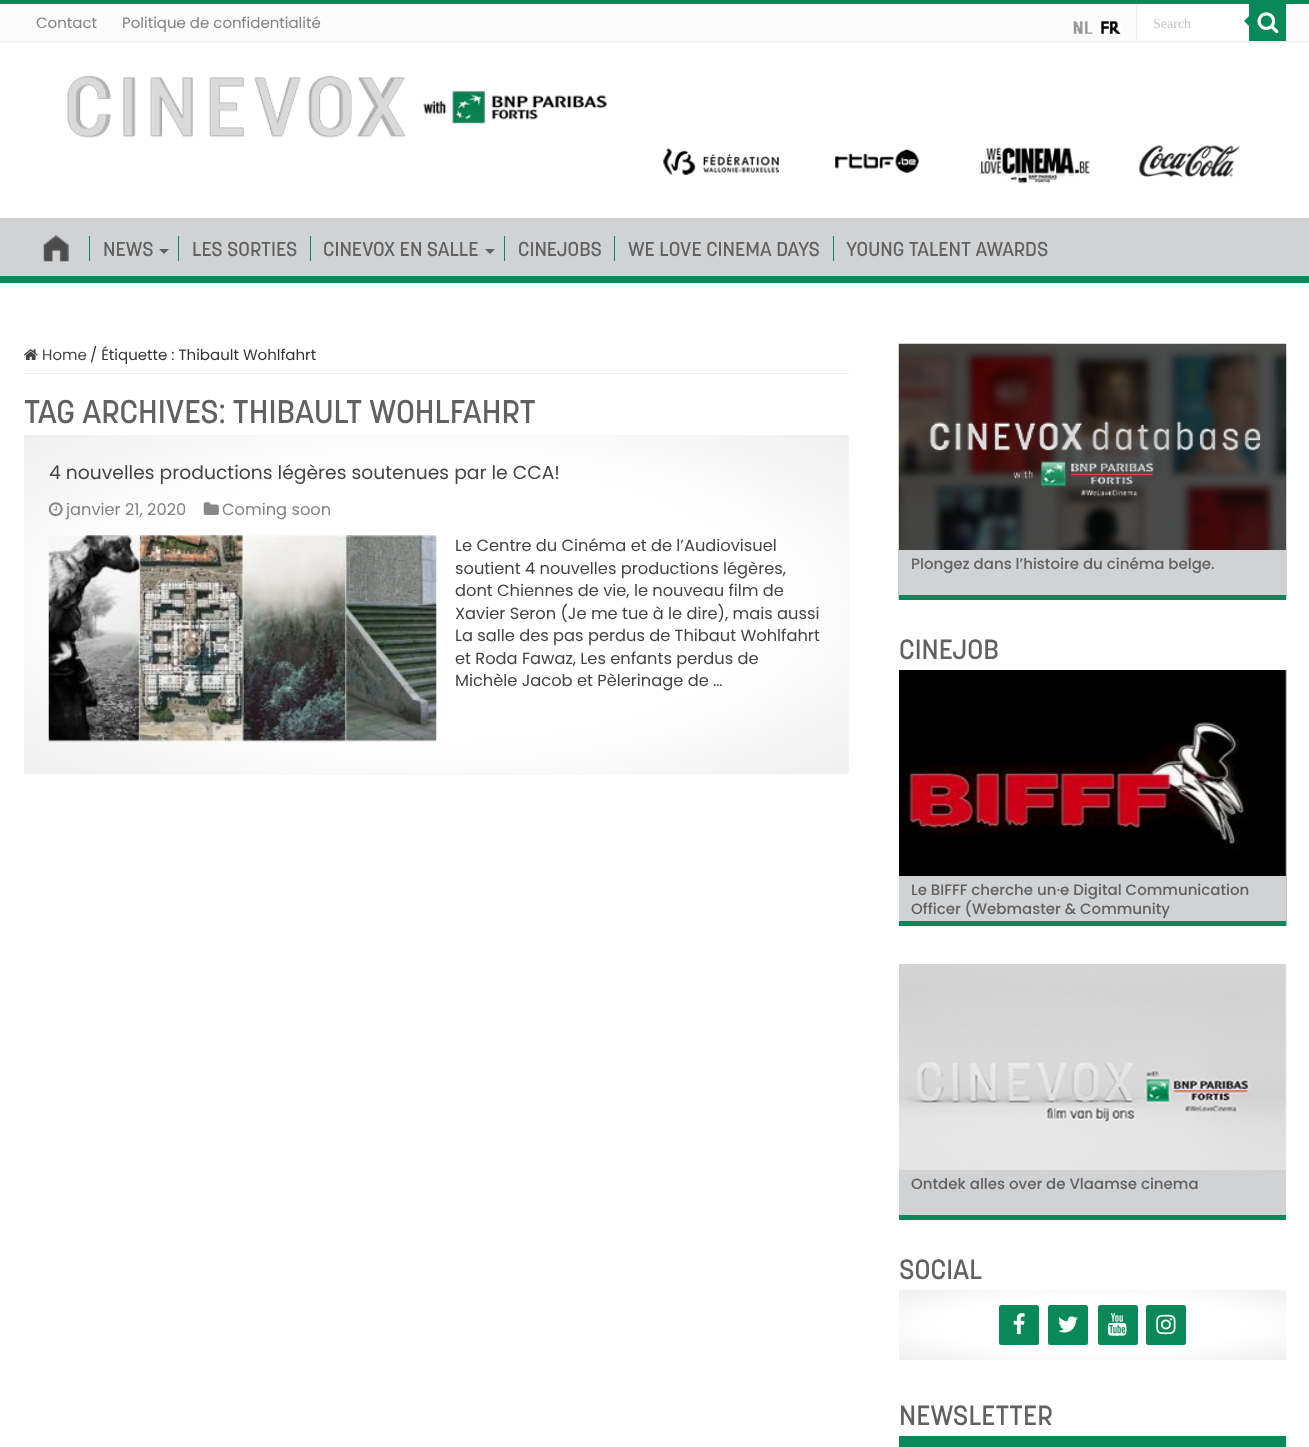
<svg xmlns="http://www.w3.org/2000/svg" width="1309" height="1447">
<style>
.a{font:15px Poppins;fill:#838383}
.b{font:14px Liberation Serif;fill:#c5c5c5}
.c{font:500 20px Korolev;fill:#616161}
.d{font:15px Poppins;fill:#444}
.e{font:15px Poppins;fill:#333}
.f{font:500 32.5px Korolev;fill:#616161}
.g{font:18.75px Poppins;fill:#444}
.h{font:16.25px Poppins;fill:#838383}
.i{font:16.25px Poppins;fill:#444}
.j{font:500 15px Poppins;fill:#616161}
.k{font:500 27.5px Korolev;fill:#616161}
</style>
<defs>
<radialGradient id="g1" gradientUnits="userSpaceOnUse" cx="0" cy="0" r="1" gradientTransform="matrix(583 0 0 240 436 604)"><stop offset="0.57" stop-color="#fff"/><stop offset="0.99" stop-color="#f0f0f0"/></radialGradient>
<radialGradient id="g2" gradientUnits="userSpaceOnUse" cx="0" cy="0" r="1" gradientTransform="matrix(274 0 0 49 1093 1325)"><stop offset="0.57" stop-color="#fff"/><stop offset="0.99" stop-color="#f0f0f0"/></radialGradient>
</defs>
<rect width="100%" height="100%" fill="#fff"/>
<path fill="#09895a" d="M0 0h1309v4H0z"/>
<path fill="#fbfbfb" d="M0 4h1309v39H0z"/>
<path fill="#ececec" d="M0 41h1309v1H0z"/>
<image href="1.png" x="1073" y="21" width="20" height="13"/>
<image href="2.png" x="1099" y="21" width="22" height="14"/>
<path fill="#fff" d="M1138 4h111v36H1138z"/>
<path fill="#ececec" d="M1136 4h1v36H1136z"/>
<path fill="#09895a" d="M1249 4h37v37H1249z"/>
<image href="3.png" x="1257" y="12" width="22" height="22"/>
<path fill="#09895a" d="M1249 16v10l-5-5z"/>
<image href="4.png" x="67" y="76" width="540" height="62"/>
<image href="5.png" x="663" y="148" width="116" height="27"/>
<image href="6.png" x="835" y="149" width="84" height="24"/>
<image href="7.png" x="979" y="147" width="111" height="37"/>
<image href="8.png" x="1139" y="145" width="101" height="32"/>
<path fill="#d1d2d4" d="M0 218h1309v58H0z"/>
<path fill="#09895a" d="M0 276h1309v7H0z"/>
<image href="9.png" x="43" y="234" width="26" height="28"/>
<path fill="#09895a" d="M89 236h1v25H89z"/>
<path fill="#616161" d="M159 249h10l-5 5z"/>
<path fill="#09895a" d="M178 236h1v25H178z"/>
<path fill="#09895a" d="M310 236h1v25H310z"/>
<path fill="#616161" d="M485 249h10l-5 5z"/>
<path fill="#09895a" d="M504 236h1v25H504z"/>
<path fill="#09895a" d="M614 236h1v25H614z"/>
<path fill="#09895a" d="M833 236h1v25H833z"/>
<path fill="#eee" d="M24 373h825v1H24z"/>
<image href="10.png" x="24" y="349" width="14" height="11"/>
<path fill="url(#g1)" d="M24 435h825v338H24z"/>
<path fill="#f2f2f2" d="M24 773h825v1H24z"/>
<image href="11.png" x="48" y="502" width="15" height="15"/>
<image href="12.png" x="203" y="502" width="16" height="13"/>
<image href="13.png" x="48" y="535" width="389" height="207"/>
<image href="14.png" x="898" y="343" width="389" height="257"/>
<path fill="#d1d2d4" d="M899 550h387v45H899z"/>
<path fill="#09895a" d="M899 595h387v5H899z"/>
<image href="15.png" x="899" y="670" width="388" height="257"/>
<path fill="#d1d2d4" d="M899 876h387v45H899z"/>
<path fill="#09895a" d="M899 921h387v5H899z"/>
<image href="16.png" x="899" y="964" width="388" height="256"/>
<path fill="#d1d2d4" d="M899 1170h387v45H899z"/>
<path fill="#09895a" d="M899 1215h387v5H899z"/>
<path fill="url(#g2)" d="M899 1290h387v70H899z"/>
<rect fill="#09895a" x="999" y="1305" width="40" height="40" rx="2.5"/>
<image href="17.png" x="1013" y="1313" width="12" height="22"/>
<rect fill="#09895a" x="1048" y="1305" width="40" height="40" rx="2.5"/>
<image href="18.png" x="1058" y="1316" width="20" height="17"/>
<rect fill="#09895a" x="1098" y="1305" width="40" height="40" rx="2.5"/>
<image href="19.png" x="1107" y="1313" width="20" height="23"/>
<rect fill="#09895a" x="1146" y="1305" width="40" height="40" rx="2.5"/>
<image href="20.png" x="1156" y="1314" width="20" height="21"/>
<path fill="#09895a" d="M899 1436h387v11H899z"/>
<text class="a" x="36" y="28">Contact</text>
<text class="a" x="122" y="28">Politique de confidentialité</text>
<text class="b" x="1153" y="28">Search</text>
<text class="c" x="103" y="256">NEWS</text>
<text class="c" x="192" y="256">LES SORTIES</text>
<text class="c" x="323" y="256">CINEVOX EN SALLE</text>
<text class="c" x="518" y="256">CINEJOBS</text>
<text class="c" x="628" y="256">WE LOVE CINEMA DAYS</text>
<text class="c" x="846" y="256">YOUNG TALENT AWARDS</text>
<text class="d" x="42" y="360">Home</text>
<text class="e" x="90" y="360">/ Étiquette : Thibault Wohlfahrt</text>
<text class="f" x="24" y="423">TAG ARCHIVES: THIBAULT WOHLFAHRT</text>
<text class="g" x="49" y="479">4 nouvelles productions légères soutenues par le CCA!</text>
<text class="h" x="66" y="515">janvier 21, 2020</text>
<text class="h" x="222" y="515">Coming soon</text>
<text class="i" x="455" y="551">Le Centre du Cinéma et de l’Audiovisuel</text>
<text class="i" x="455" y="574">soutient 4 nouvelles productions légères,</text>
<text class="i" x="455" y="596">dont Chiennes de vie, le nouveau film de</text>
<text class="i" x="455" y="619">Xavier Seron (Je me tue à le dire), mais aussi</text>
<text class="i" x="455" y="641">La salle des pas perdus de Thibaut Wohlfahrt</text>
<text class="i" x="455" y="664">et Roda Fawaz, Les enfants perdus de</text>
<text class="i" x="455" y="686">Michèle Jacob et Pèlerinage de …</text>
<text class="j" x="911" y="569">Plongez dans l’histoire du cinéma belge.</text>
<text class="k" x="899" y="659">CINEJOB</text>
<text class="j" x="911" y="895">Le BIFFF cherche un·e Digital Communication</text>
<text class="j" x="911" y="914">Officer (Webmaster &amp; Community</text>
<text class="j" x="911" y="1189">Ontdek alles over de Vlaamse cinema</text>
<text class="k" x="899" y="1279">SOCIAL</text>
<text class="k" x="899" y="1425">NEWSLETTER</text>
</svg>
